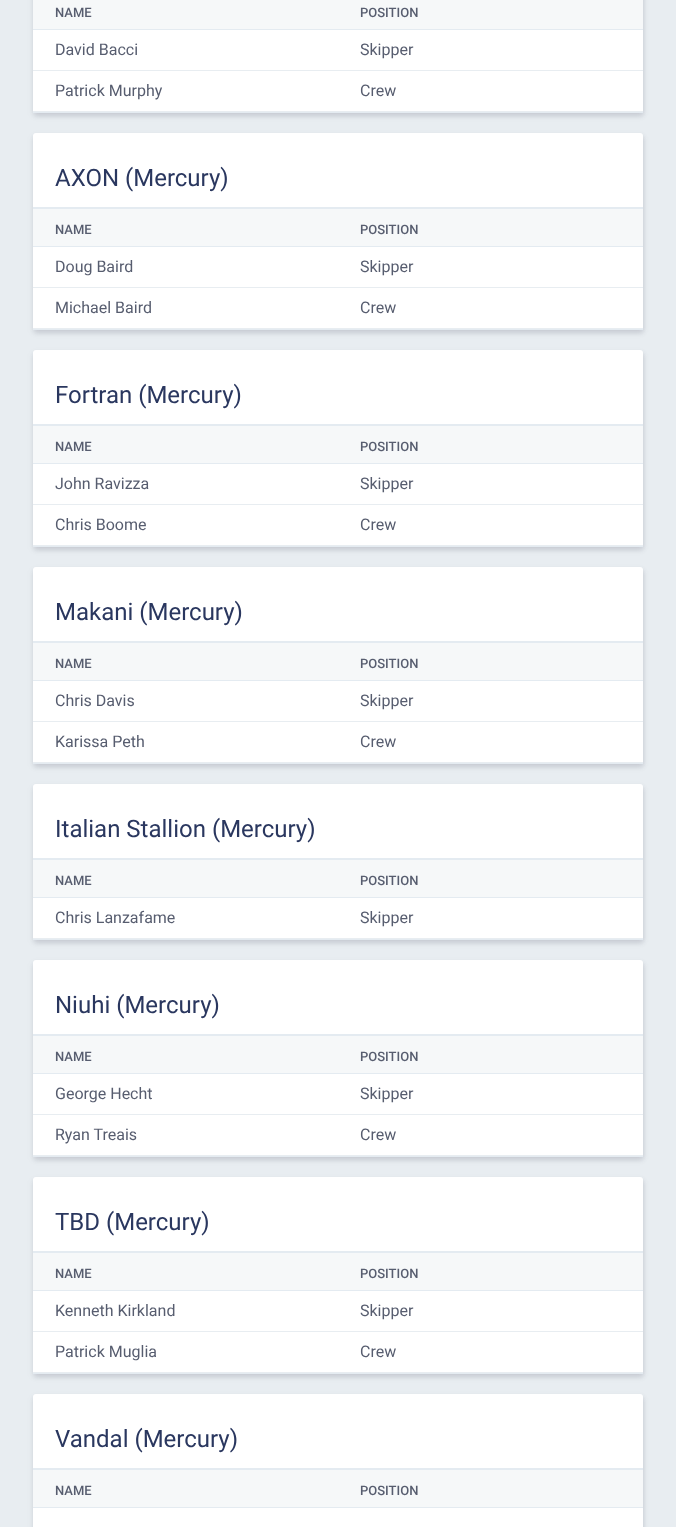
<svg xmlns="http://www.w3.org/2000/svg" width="676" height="1527">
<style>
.a{font:500 13px Roboto;fill:#575d6f}
.b{font:16px Roboto;fill:#575d6f}
.c{font:24px Roboto;fill:#2a375f}
</style>
<rect width="100%" height="100%" fill="#e8edf1"/>
<rect fill="#00000012" filter="blur(3px)" x="33" y="-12" width="610" height="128" rx="3"/>
<rect fill="#32325d1a" filter="blur(2px)" x="34" y="-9" width="610" height="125" rx="3"/>
<path fill="#e4ebf1" d="M33 112h610v1H33z"/>
<path fill="#fff" d="M33 30h610v81H33z"/>
<path fill="#f6f8f9" d="M33 0h610v29H33z"/>
<path fill="#e4ebf1" d="M33 29h610v1H33z"/>
<path fill="#e8edf1" d="M33 70h610v1H33z"/>
<path fill="#e8edf1" d="M33 111h610v1H33z"/>
<rect fill="#00000012" filter="blur(3px)" x="33" y="136" width="610" height="197" rx="3"/>
<rect fill="#32325d1a" filter="blur(2px)" x="34" y="136" width="610" height="197" rx="3"/>
<rect fill="#fff" x="33" y="133" width="610" height="197" rx="3"/>
<path fill="#e4ebf1" d="M33 207h610v2H33z"/>
<path fill="#e4ebf1" d="M33 329h610v1H33z"/>
<path fill="#fff" d="M33 327h610v1H33z"/>
<path fill="#f6f8f9" d="M33 209h610v37H33z"/>
<path fill="#e4ebf1" d="M33 246h610v1H33z"/>
<path fill="#e8edf1" d="M33 287h610v1H33z"/>
<path fill="#e8edf1" d="M33 328h610v1H33z"/>
<rect fill="#00000012" filter="blur(3px)" x="33" y="353" width="610" height="197" rx="3"/>
<rect fill="#32325d1a" filter="blur(2px)" x="34" y="353" width="610" height="197" rx="3"/>
<rect fill="#fff" x="33" y="350" width="610" height="197" rx="3"/>
<path fill="#e4ebf1" d="M33 424h610v2H33z"/>
<path fill="#e4ebf1" d="M33 546h610v1H33z"/>
<path fill="#fff" d="M33 544h610v1H33z"/>
<path fill="#f6f8f9" d="M33 426h610v37H33z"/>
<path fill="#e4ebf1" d="M33 463h610v1H33z"/>
<path fill="#e8edf1" d="M33 504h610v1H33z"/>
<path fill="#e8edf1" d="M33 545h610v1H33z"/>
<rect fill="#00000012" filter="blur(3px)" x="33" y="570" width="610" height="197" rx="3"/>
<rect fill="#32325d1a" filter="blur(2px)" x="34" y="570" width="610" height="197" rx="3"/>
<rect fill="#fff" x="33" y="567" width="610" height="197" rx="3"/>
<path fill="#e4ebf1" d="M33 641h610v2H33z"/>
<path fill="#e4ebf1" d="M33 763h610v1H33z"/>
<path fill="#fff" d="M33 761h610v1H33z"/>
<path fill="#f6f8f9" d="M33 643h610v37H33z"/>
<path fill="#e4ebf1" d="M33 680h610v1H33z"/>
<path fill="#e8edf1" d="M33 721h610v1H33z"/>
<path fill="#e8edf1" d="M33 762h610v1H33z"/>
<rect fill="#00000012" filter="blur(3px)" x="33" y="787" width="610" height="156" rx="3"/>
<rect fill="#32325d1a" filter="blur(2px)" x="34" y="787" width="610" height="156" rx="3"/>
<rect fill="#fff" x="33" y="784" width="610" height="156" rx="3"/>
<path fill="#e4ebf1" d="M33 858h610v2H33z"/>
<path fill="#e4ebf1" d="M33 939h610v1H33z"/>
<path fill="#fff" d="M33 937h610v1H33z"/>
<path fill="#f6f8f9" d="M33 860h610v37H33z"/>
<path fill="#e4ebf1" d="M33 897h610v1H33z"/>
<path fill="#e8edf1" d="M33 938h610v1H33z"/>
<rect fill="#00000012" filter="blur(3px)" x="33" y="963" width="610" height="197" rx="3"/>
<rect fill="#32325d1a" filter="blur(2px)" x="34" y="963" width="610" height="197" rx="3"/>
<rect fill="#fff" x="33" y="960" width="610" height="197" rx="3"/>
<path fill="#e4ebf1" d="M33 1034h610v2H33z"/>
<path fill="#e4ebf1" d="M33 1156h610v1H33z"/>
<path fill="#fff" d="M33 1154h610v1H33z"/>
<path fill="#f6f8f9" d="M33 1036h610v37H33z"/>
<path fill="#e4ebf1" d="M33 1073h610v1H33z"/>
<path fill="#e8edf1" d="M33 1114h610v1H33z"/>
<path fill="#e8edf1" d="M33 1155h610v1H33z"/>
<rect fill="#00000012" filter="blur(3px)" x="33" y="1180" width="610" height="197" rx="3"/>
<rect fill="#32325d1a" filter="blur(2px)" x="34" y="1180" width="610" height="197" rx="3"/>
<rect fill="#fff" x="33" y="1177" width="610" height="197" rx="3"/>
<path fill="#e4ebf1" d="M33 1251h610v2H33z"/>
<path fill="#e4ebf1" d="M33 1373h610v1H33z"/>
<path fill="#fff" d="M33 1371h610v1H33z"/>
<path fill="#f6f8f9" d="M33 1253h610v37H33z"/>
<path fill="#e4ebf1" d="M33 1290h610v1H33z"/>
<path fill="#e8edf1" d="M33 1331h610v1H33z"/>
<path fill="#e8edf1" d="M33 1372h610v1H33z"/>
<rect fill="#00000012" filter="blur(3px)" x="33" y="1397" width="610" height="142" rx="3"/>
<rect fill="#32325d1a" filter="blur(2px)" x="34" y="1397" width="610" height="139" rx="3"/>
<rect fill="#fff" x="33" y="1394" width="610" height="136" rx="3"/>
<path fill="#e4ebf1" d="M33 1468h610v2H33z"/>
<path fill="#f6f8f9" d="M33 1470h610v37H33z"/>
<path fill="#e4ebf1" d="M33 1507h610v1H33z"/>
<text class="a" x="55" y="17">NAME</text>
<text class="a" x="360" y="17">POSITION</text>
<text class="b" x="55" y="55">David Bacci</text>
<text class="b" x="360" y="55">Skipper</text>
<text class="b" x="55" y="96">Patrick Murphy</text>
<text class="b" x="360" y="96">Crew</text>
<text class="c" x="55" y="186">AXON (Mercury)</text>
<text class="a" x="55" y="234">NAME</text>
<text class="a" x="360" y="234">POSITION</text>
<text class="b" x="55" y="272">Doug Baird</text>
<text class="b" x="360" y="272">Skipper</text>
<text class="b" x="55" y="313">Michael Baird</text>
<text class="b" x="360" y="313">Crew</text>
<text class="c" x="55" y="403">Fortran (Mercury)</text>
<text class="a" x="55" y="451">NAME</text>
<text class="a" x="360" y="451">POSITION</text>
<text class="b" x="55" y="489">John Ravizza</text>
<text class="b" x="360" y="489">Skipper</text>
<text class="b" x="55" y="530">Chris Boome</text>
<text class="b" x="360" y="530">Crew</text>
<text class="c" x="55" y="620">Makani (Mercury)</text>
<text class="a" x="55" y="668">NAME</text>
<text class="a" x="360" y="668">POSITION</text>
<text class="b" x="55" y="706">Chris Davis</text>
<text class="b" x="360" y="706">Skipper</text>
<text class="b" x="55" y="747">Karissa Peth</text>
<text class="b" x="360" y="747">Crew</text>
<text class="c" x="55" y="837">Italian Stallion (Mercury)</text>
<text class="a" x="55" y="885">NAME</text>
<text class="a" x="360" y="885">POSITION</text>
<text class="b" x="55" y="923">Chris Lanzafame</text>
<text class="b" x="360" y="923">Skipper</text>
<text class="c" x="55" y="1013">Niuhi (Mercury)</text>
<text class="a" x="55" y="1061">NAME</text>
<text class="a" x="360" y="1061">POSITION</text>
<text class="b" x="55" y="1099">George Hecht</text>
<text class="b" x="360" y="1099">Skipper</text>
<text class="b" x="55" y="1140">Ryan Treais</text>
<text class="b" x="360" y="1140">Crew</text>
<text class="c" x="55" y="1230">TBD (Mercury)</text>
<text class="a" x="55" y="1278">NAME</text>
<text class="a" x="360" y="1278">POSITION</text>
<text class="b" x="55" y="1316">Kenneth Kirkland</text>
<text class="b" x="360" y="1316">Skipper</text>
<text class="b" x="55" y="1357">Patrick Muglia</text>
<text class="b" x="360" y="1357">Crew</text>
<text class="c" x="55" y="1447">Vandal (Mercury)</text>
<text class="a" x="55" y="1495">NAME</text>
<text class="a" x="360" y="1495">POSITION</text>
</svg>
